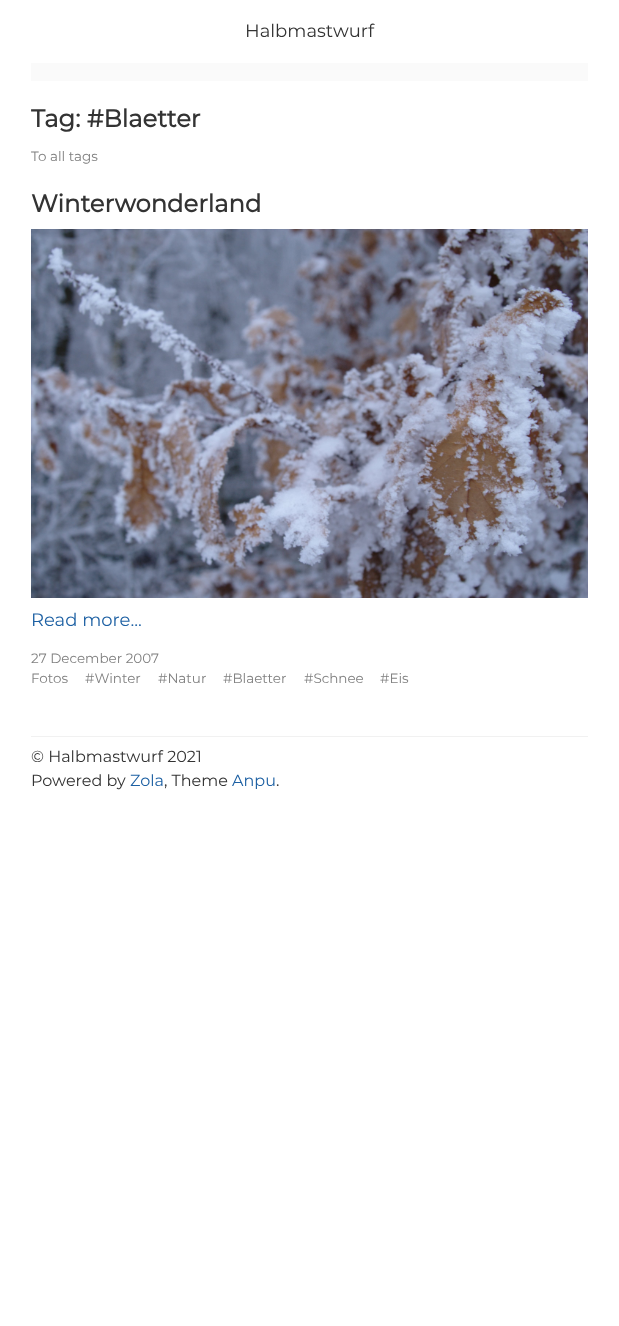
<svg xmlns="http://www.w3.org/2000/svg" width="619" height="1326">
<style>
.a{font:100 18px Montserrat;fill:#333}
.b{font:bold 24.25px Montserrat;fill:#333}
.c{font:100 13.5px Montserrat;fill:#808080}
.d{font:100 18px Montserrat;fill:#1d60a3}
.e{font:100 16px Montserrat;fill:#333}
.f{font:100 16px Montserrat;fill:#1d60a3}
</style>
<rect width="100%" height="100%" fill="#fff"/>
<path fill="#fafafa" d="M31 63h557v18H31z"/>
<image href="1.png" x="31" y="229" width="557" height="369"/>
<path fill="#f1f1f1" d="M31 736h557v1H31z"/>
<text class="a" x="245" y="37">Halbmastwurf</text>
<text class="b" x="31" y="127">Tag: #Blaetter</text>
<text class="c" x="31" y="161">To all tags</text>
<text class="b" x="31" y="212">Winterwonderland</text>
<text class="d" x="31" y="626">Read more...</text>
<text class="c" x="31" y="663">27 December 2007</text>
<text class="c" x="31" y="683">Fotos</text>
<text class="c" x="85" y="683">#Winter</text>
<text class="c" x="158" y="683">#Natur</text>
<text class="c" x="223" y="683">#Blaetter</text>
<text class="c" x="304" y="683">#Schnee</text>
<text class="c" x="380" y="683">#Eis</text>
<text class="e" x="31" y="762">© Halbmastwurf 2021</text>
<text class="e" x="31" y="786">Powered by</text>
<text class="f" x="130" y="786">Zola</text>
<text class="e" x="164" y="786">, Theme</text>
<text class="f" x="232" y="786">Anpu</text>
<text class="e" x="276" y="786">.</text>
</svg>
